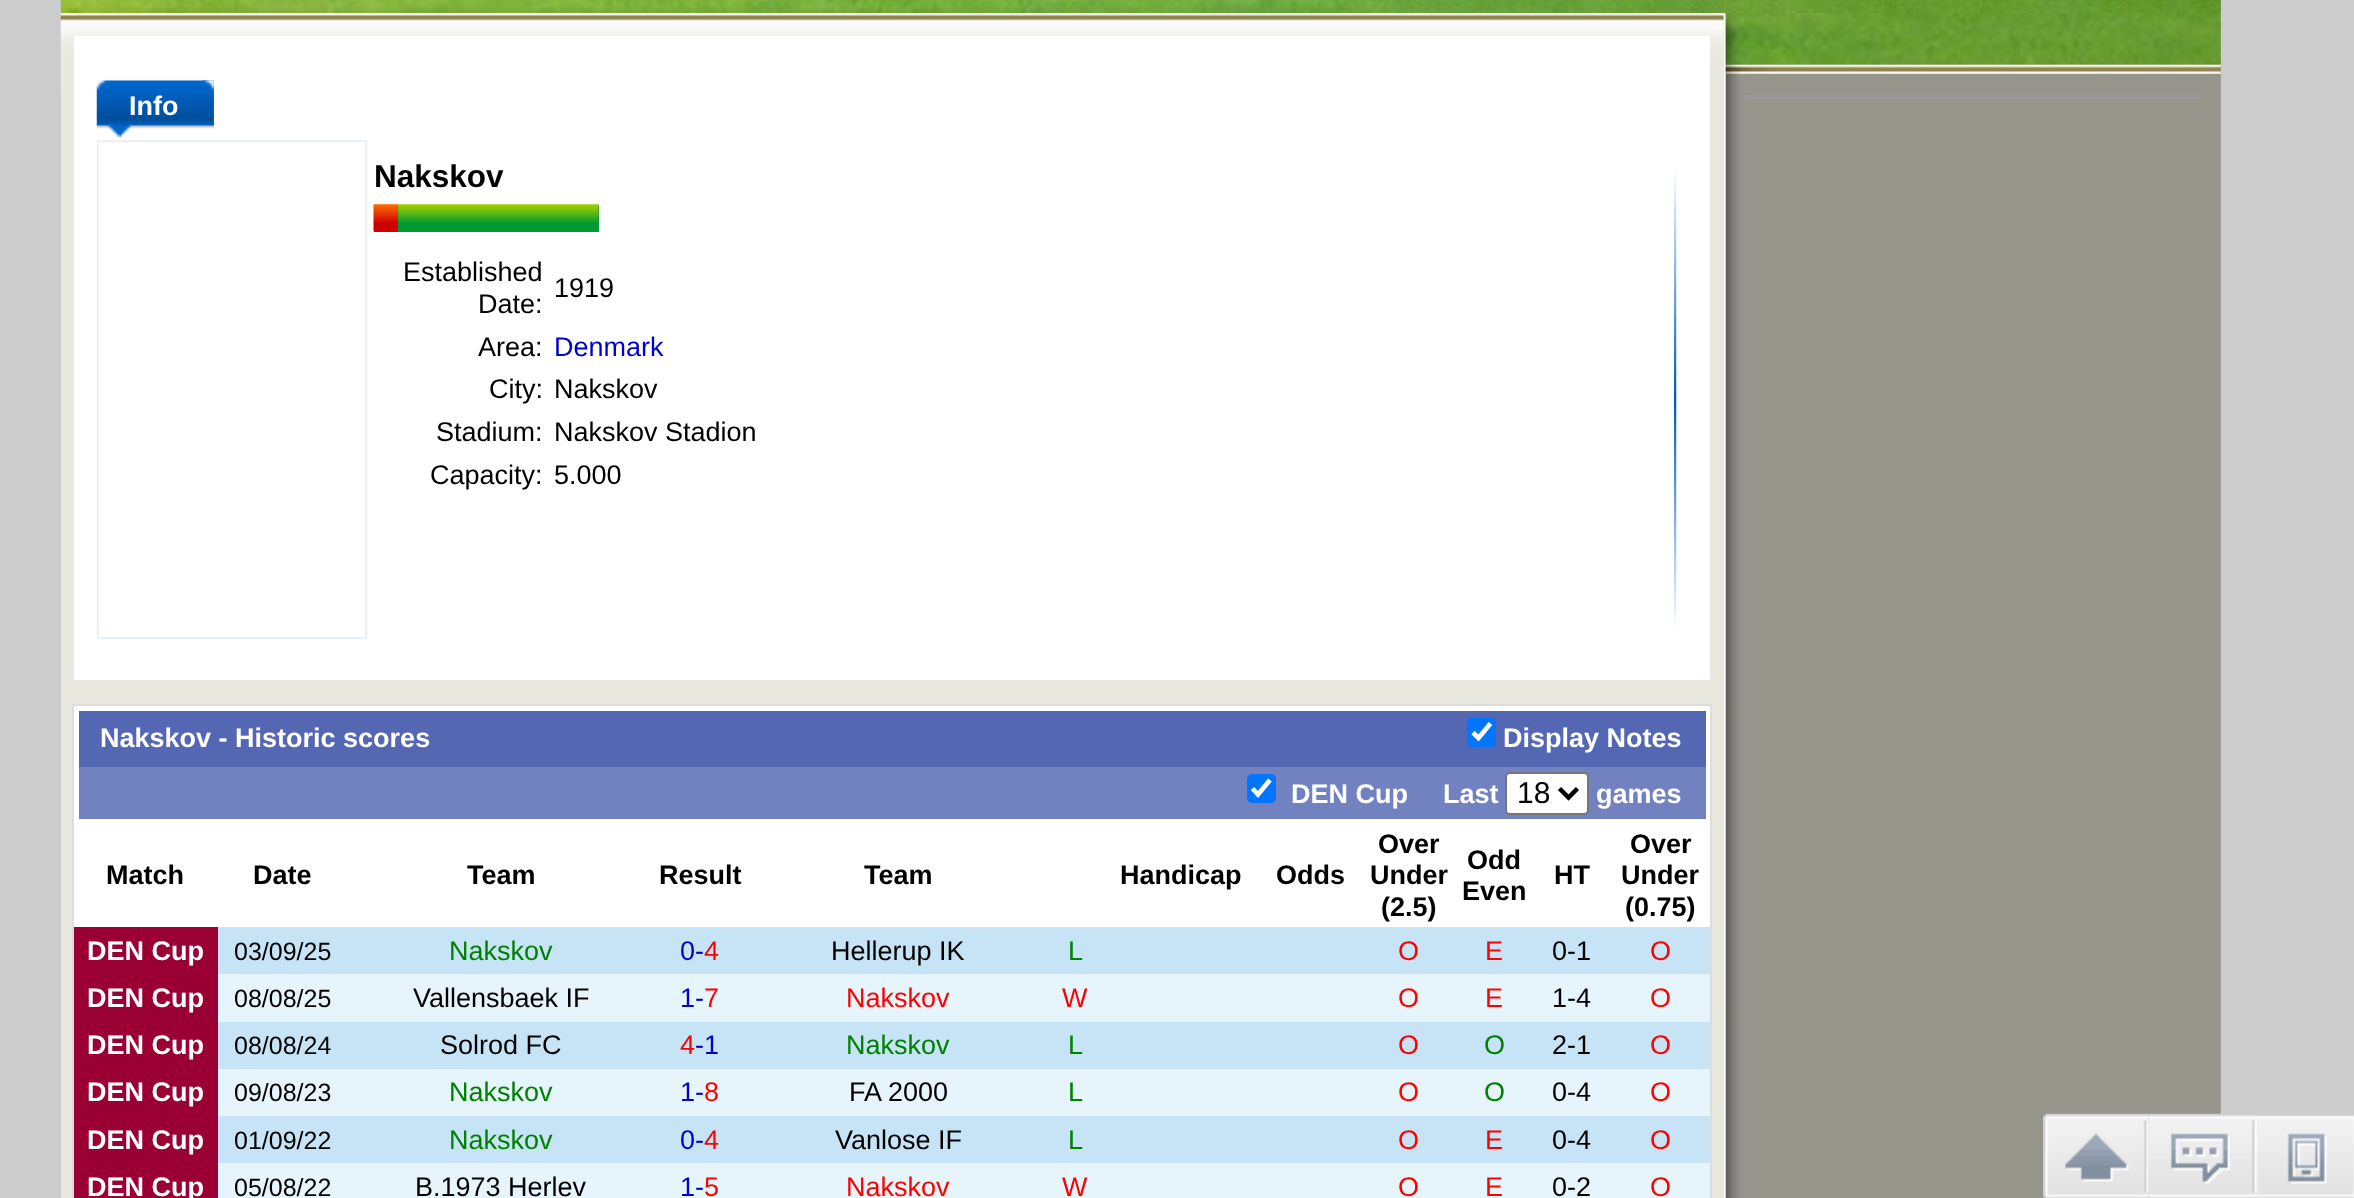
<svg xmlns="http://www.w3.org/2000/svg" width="2354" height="1198">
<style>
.a{font:bold 27px Liberation Sans;fill:#fff}
.b{font:bold 31.5px Liberation Sans;fill:#000}
.c{font:27px Liberation Sans;fill:#000}
.d{font:27px Liberation Sans;fill:#00c}
.e{font:30px Liberation Sans;fill:#000}
.f{font:bold 27px Liberation Sans;fill:#000}
.g{font:25px Liberation Sans;fill:#000}
.h{font:27px Liberation Sans;fill:#008000}
.i{font:27px Liberation Sans;fill:#f00}
</style>
<rect width="100%" height="100%" fill="#ccc"/>
<path fill="#e9e9df" d="M61 0h1665v1198H61z"/>
<image href="1.png" x="60" y="0" width="1666" height="13"/>
<image href="2.png" x="60" y="13" width="1664" height="79"/>
<path fill="#fff" d="M74 36h1636v644H74z"/>
<image href="3.png" x="96" y="80" width="118" height="57"/>
<image href="4.png" x="202" y="80" width="12" height="48"/>
<path fill="none" stroke="#e9f1f8" stroke-width="2" d="M98 141h268v497H98z"/>
<path fill="#c00" d="M374 231h24v1H374z"/>
<image href="5.png" x="373" y="204" width="26" height="28"/>
<path fill="#093" d="M398 205h201v27H398z"/>
<image href="6.png" x="398" y="204" width="201" height="19"/>
<image href="7.png" x="1674" y="167" width="3" height="464"/>
<path fill="#fff" d="M74 706h1636v221H74z"/>
<path fill="#ddd" d="M72 704h1640v2H72z"/>
<path fill="#ddd" d="M1710 704h2v494H1710z"/>
<path fill="#ddd" d="M72 704h2v494H72z"/>
<path fill="#5467b3" d="M79 711h1627v56H79z"/>
<rect fill="#0075ff" x="1467" y="718" width="29" height="29" rx="5"/>
<path fill="none" stroke="#fff" stroke-width="4.7" d="M1473 732.5l5.5 5.5l12-14.5"/>
<path fill="#7282c0" d="M79 767h1627v52H79z"/>
<rect fill="#0075ff" x="1247" y="774" width="29" height="29" rx="5"/>
<path fill="none" stroke="#fff" stroke-width="4.7" d="M1252.5 788.5l5.5 6l12-14.5"/>
<rect fill="#fff" stroke="#767676" stroke-width="2" x="1506" y="773" width="82" height="41" rx="4"/>
<path fill="none" stroke="#000" stroke-width="4.5" d="M1559.5 788.5l9 9l9-9"/>
<path fill="#c6e4f5" d="M218 927h1492v47H218z"/>
<path fill="#9a0033" d="M74 927h144v271H74z"/>
<path fill="#e6f4fb" d="M218 974h1492v48H218z"/>
<path fill="#c6e4f5" d="M218 1022h1492v47H218z"/>
<path fill="#e6f4fb" d="M218 1069h1492v47H218z"/>
<path fill="#c6e4f5" d="M218 1116h1492v47H218z"/>
<path fill="#e6f4fb" d="M218 1163h1492v35H218z"/>
<path fill="#fff" d="M1724 14h2v1184H1724z"/>
<image href="8.png" x="1725" y="0" width="496" height="1198"/>
<image href="9.png" x="1725" y="0" width="496" height="13"/>
<image href="10.png" x="1725" y="13" width="496" height="52"/>
<image href="11.png" x="1725" y="64" width="496" height="10"/>
<path fill="#999" d="M1746 95h455v4H1746z"/>
<image href="12.png" x="2043" y="1113" width="106" height="85"/>
<image href="13.png" x="2148" y="1113" width="102" height="85"/>
<image href="14.png" x="2250" y="1114" width="104" height="84"/>
<text class="a" x="129" y="115">Info</text>
<text class="b" x="374" y="187">Nakskov</text>
<text class="c" x="403" y="281">Established</text>
<text class="c" x="478" y="313">Date:</text>
<text class="c" x="554" y="297">1919</text>
<text class="c" x="478" y="356">Area:</text>
<text class="d" x="554" y="356">Denmark</text>
<text class="c" x="489" y="398">City:</text>
<text class="c" x="554" y="398">Nakskov</text>
<text class="c" x="436" y="441">Stadium:</text>
<text class="c" x="554" y="441">Nakskov Stadion</text>
<text class="c" x="430" y="484">Capacity:</text>
<text class="c" x="554" y="484">5.000</text>
<text class="a" x="100" y="747">Nakskov - Historic scores</text>
<text class="a" x="1503" y="747">Display Notes</text>
<text class="a" x="1291" y="803">DEN Cup</text>
<text class="a" x="1443" y="803">Last</text>
<text class="e" x="1517" y="803">18</text>
<text class="a" x="1596" y="803">games</text>
<text class="f" x="106" y="884">Match</text>
<text class="f" x="253" y="884">Date</text>
<text class="f" x="467" y="884">Team</text>
<text class="f" x="659" y="884">Result</text>
<text class="f" x="864" y="884">Team</text>
<text class="f" x="1120" y="884">Handicap</text>
<text class="f" x="1276" y="884">Odds</text>
<text class="f" x="1378" y="853">Over</text>
<text class="f" x="1370" y="884">Under</text>
<text class="f" x="1381" y="916">(2.5)</text>
<text class="f" x="1467" y="869">Odd</text>
<text class="f" x="1462" y="900">Even</text>
<text class="f" x="1554" y="884">HT</text>
<text class="f" x="1630" y="853">Over</text>
<text class="f" x="1621" y="884">Under</text>
<text class="f" x="1625" y="916">(0.75)</text>
<text class="a" x="87" y="960">DEN Cup</text>
<text class="g" x="234" y="960">03/09/25</text>
<text class="h" x="449" y="960">Nakskov</text>
<text class="d" x="680" y="960">0-</text>
<text class="i" x="704" y="960">4</text>
<text class="c" x="831" y="960">Hellerup IK</text>
<text class="h" x="1068" y="960">L</text>
<text class="i" x="1398" y="960">O</text>
<text class="i" x="1485" y="960">E</text>
<text class="c" x="1552" y="960">0-1</text>
<text class="i" x="1650" y="960">O</text>
<text class="a" x="87" y="1007">DEN Cup</text>
<text class="g" x="234" y="1007">08/08/25</text>
<text class="c" x="413" y="1007">Vallensbaek IF</text>
<text class="d" x="680" y="1007">1-</text>
<text class="i" x="704" y="1007">7</text>
<text class="i" x="846" y="1007">Nakskov</text>
<text class="i" x="1062" y="1007">W</text>
<text class="i" x="1398" y="1007">O</text>
<text class="i" x="1485" y="1007">E</text>
<text class="c" x="1552" y="1007">1-4</text>
<text class="i" x="1650" y="1007">O</text>
<text class="a" x="87" y="1054">DEN Cup</text>
<text class="g" x="234" y="1054">08/08/24</text>
<text class="c" x="440" y="1054">Solrod FC</text>
<text class="i" x="680" y="1054">4</text>
<text class="d" x="695" y="1054">-1</text>
<text class="h" x="846" y="1054">Nakskov</text>
<text class="h" x="1068" y="1054">L</text>
<text class="i" x="1398" y="1054">O</text>
<text class="h" x="1484" y="1054">O</text>
<text class="c" x="1552" y="1054">2-1</text>
<text class="i" x="1650" y="1054">O</text>
<text class="a" x="87" y="1101">DEN Cup</text>
<text class="g" x="234" y="1101">09/08/23</text>
<text class="h" x="449" y="1101">Nakskov</text>
<text class="d" x="680" y="1101">1-</text>
<text class="i" x="704" y="1101">8</text>
<text class="c" x="849" y="1101">FA 2000</text>
<text class="h" x="1068" y="1101">L</text>
<text class="i" x="1398" y="1101">O</text>
<text class="h" x="1484" y="1101">O</text>
<text class="c" x="1552" y="1101">0-4</text>
<text class="i" x="1650" y="1101">O</text>
<text class="a" x="87" y="1149">DEN Cup</text>
<text class="g" x="234" y="1149">01/09/22</text>
<text class="h" x="449" y="1149">Nakskov</text>
<text class="d" x="680" y="1149">0-</text>
<text class="i" x="704" y="1149">4</text>
<text class="c" x="835" y="1149">Vanlose IF</text>
<text class="h" x="1068" y="1149">L</text>
<text class="i" x="1398" y="1149">O</text>
<text class="i" x="1485" y="1149">E</text>
<text class="c" x="1552" y="1149">0-4</text>
<text class="i" x="1650" y="1149">O</text>
<text class="a" x="87" y="1196">DEN Cup</text>
<text class="g" x="234" y="1196">05/08/22</text>
<text class="c" x="415" y="1196">B.1973 Herlev</text>
<text class="d" x="680" y="1196">1-</text>
<text class="i" x="704" y="1196">5</text>
<text class="i" x="846" y="1196">Nakskov</text>
<text class="i" x="1062" y="1196">W</text>
<text class="i" x="1398" y="1196">O</text>
<text class="i" x="1485" y="1196">E</text>
<text class="c" x="1552" y="1196">0-2</text>
<text class="i" x="1650" y="1196">O</text>
</svg>
